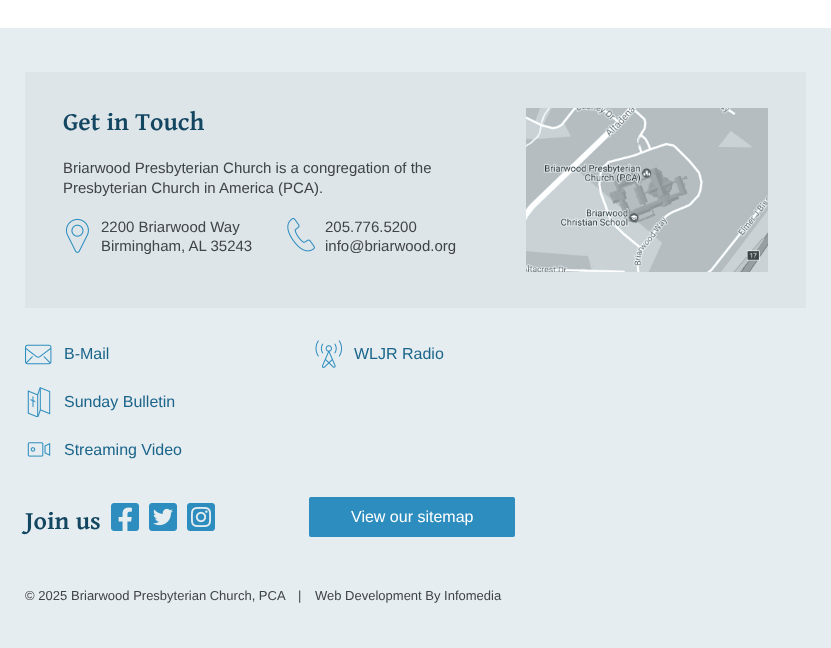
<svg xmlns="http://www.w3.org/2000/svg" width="831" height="648">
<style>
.a{font:bold 25.5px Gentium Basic;fill:#134661}
.b{font:15px Liberation Sans;fill:#404347}
.c{font:16px Liberation Sans;fill:#1b658b}
.d{font:16px Liberation Sans;fill:#fff}
.e{font:13px Liberation Sans;fill:#404347}
</style>
<rect width="100%" height="100%" fill="#fff"/>
<path fill="#e6edf0" d="M0 28h831v620H0z"/>
<path fill="#dde5e9" d="M25 72h781v236H25z"/>
<image href="1.png" x="65" y="218" width="24" height="35"/>
<image href="2.png" x="287" y="218" width="28" height="34"/>
<image href="3.png" x="526" y="108" width="242" height="164"/>
<image href="4.png" x="25" y="344" width="27" height="21"/>
<image href="5.png" x="315" y="340" width="27" height="28"/>
<image href="6.png" x="27" y="387" width="24" height="30"/>
<image href="7.png" x="27" y="442" width="24" height="15"/>
<image href="8.png" x="111" y="503" width="28" height="28"/>
<image href="9.png" x="149" y="503" width="28" height="28"/>
<image href="10.png" x="187" y="503" width="28" height="28"/>
<rect fill="#2d8dbe" x="309" y="497" width="206" height="40" rx="2"/>
<text class="a" x="63" y="130">Get in Touch</text>
<text class="b" x="63" y="173">Briarwood Presbyterian Church is a congregation of the</text>
<text class="b" x="63" y="193">Presbyterian Church in America (PCA).</text>
<text class="b" x="101" y="232">2200 Briarwood Way</text>
<text class="b" x="101" y="251">Birmingham, AL 35243</text>
<text class="b" x="325" y="232">205.776.5200</text>
<text class="b" x="325" y="251">info@briarwood.org</text>
<text class="c" x="64" y="359">B-Mail</text>
<text class="c" x="354" y="359">WLJR Radio</text>
<text class="c" x="64" y="407">Sunday Bulletin</text>
<text class="c" x="64" y="455">Streaming Video</text>
<text class="a" x="25" y="529">Join us</text>
<text class="d" x="351" y="522">View our sitemap</text>
<text class="e" x="25" y="600">© 2025</text>
<text class="e" x="71" y="600">Briarwood Presbyterian Church, PCA</text>
<text class="e" x="298" y="600">|</text>
<text class="e" x="315" y="600">Web Development By Infomedia</text>
</svg>
